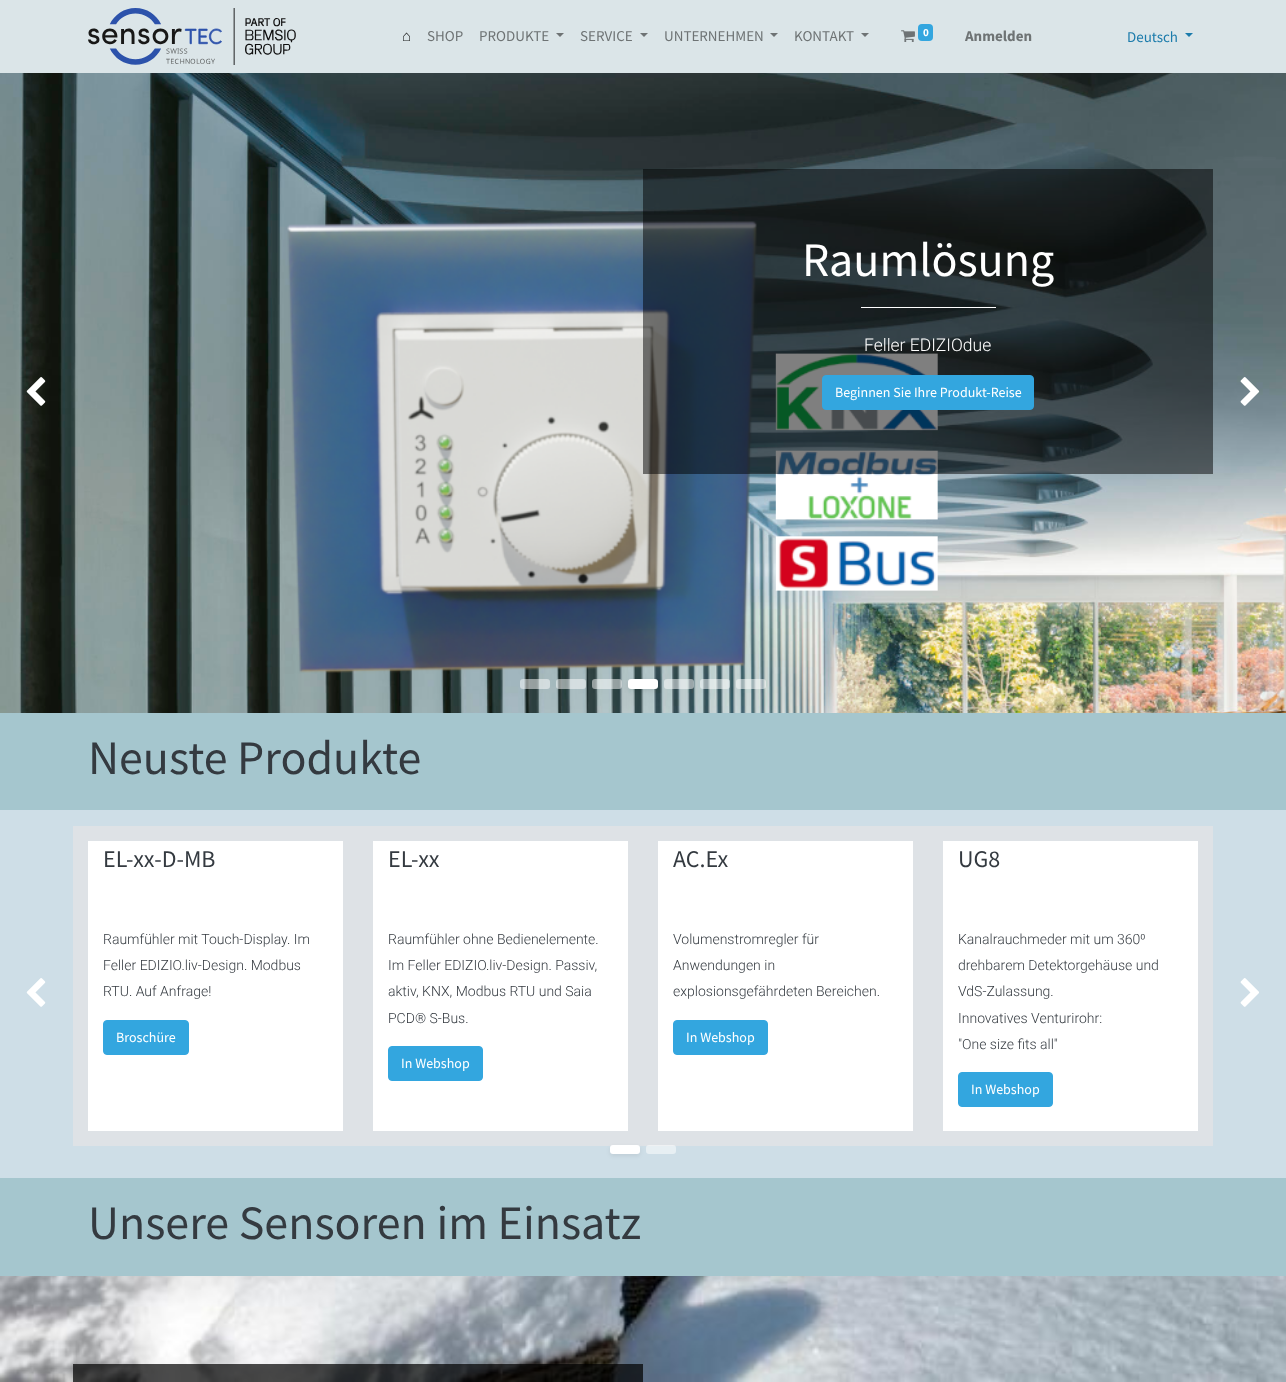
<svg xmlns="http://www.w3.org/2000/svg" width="1286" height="1382">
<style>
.a{font:15px Liberation Sans;fill:#161717}
.b{font:15px Source Sans Pro;fill:#6e7374}
.c{font:bold 11px Source Sans Pro;fill:#fff}
.d{font:bold 15px Source Sans Pro;fill:#6e7374}
.e{font:15px Source Sans Pro;fill:#1b7bab}
.f{font:48px Source Sans Pro;fill:#fff}
.g{font:300 17.5px Roboto;fill:#fff}
.h{font:14px Source Sans Pro;fill:#fff}
.i{font:48px Source Sans Pro;fill:#343a40}
.j{font:24px Source Sans Pro;fill:#343a40}
.k{font:300 14px Roboto;fill:#343a40}
</style>
<rect width="100%" height="100%" fill="#a5c6ce"/>
<path fill="#dbe5e8" d="M0 0h1286v73H0z"/>
<image href="1.png" x="88" y="8" width="208" height="57"/>
<path fill="#6e7374" d="M556 33h8l-4 4z"/>
<path fill="#6e7374" d="M640 33h8l-4 4z"/>
<path fill="#6e7374" d="M770 33h8l-4 4z"/>
<path fill="#6e7374" d="M861 33h8l-4 4z"/>
<image href="2.png" x="901" y="30" width="14" height="12"/>
<rect fill="#33a6df" x="918" y="24" width="15" height="17" rx="4"/>
<path fill="#1b7bab" d="M1185 33h8l-4 4z"/>
<image href="4.png" x="0" y="73" width="1286" height="640"/>
<image href="3.png" x="26" y="377" width="20" height="29"/>
<path fill="#00000080" d="M643 169h570v305H643z"/>
<path fill="#fff" d="M861 307h135v1H861z"/>
<rect fill="#33a6df" stroke="#33a6df" x="822.5" y="375.5" width="211" height="34" rx="3.5"/>
<image href="5.png" x="1240" y="377" width="20" height="29"/>
<rect fill="#ffffff80" x="520" y="679" width="30" height="10" rx="3"/>
<rect fill="#ffffff80" x="556" y="679" width="30" height="10" rx="3"/>
<rect fill="#00000012" filter="blur(2px)" x="628" y="681" width="30" height="10" rx="3"/>
<rect fill="#ffffff80" x="592" y="679" width="30" height="10" rx="3"/>
<rect fill="#fff" x="628" y="679" width="30" height="10" rx="3"/>
<rect fill="#ffffff80" x="664" y="679" width="30" height="10" rx="3"/>
<rect fill="#ffffff80" x="700" y="679" width="30" height="10" rx="3"/>
<rect fill="#ffffff80" x="736" y="679" width="30" height="10" rx="3"/>
<path fill="#cedee7" d="M0 810h1286v368H0z"/>
<image href="6.png" x="26" y="978" width="20" height="29"/>
<path fill="#fff" stroke="#dee2e6" stroke-width="15" d="M80.5 833.5h270v305H80.5z"/>
<rect fill="#33a6df" stroke="#33a6df" x="103.5" y="1020.5" width="85" height="34" rx="3.5"/>
<path fill="#fff" stroke="#dee2e6" stroke-width="15" d="M365.5 833.5h270v305H365.5z"/>
<rect fill="#33a6df" stroke="#33a6df" x="388.5" y="1046.5" width="94" height="34" rx="3.5"/>
<path fill="#fff" stroke="#dee2e6" stroke-width="15" d="M650.5 833.5h270v305H650.5z"/>
<rect fill="#33a6df" stroke="#33a6df" x="673.5" y="1020.5" width="94" height="34" rx="3.5"/>
<path fill="#fff" d="M943 841h255v290H943z"/>
<path fill="none" stroke="#dee2e6" stroke-width="15" d="M935.5 833.5h270v305h-270z"/>
<rect fill="#33a6df" stroke="#33a6df" x="958.5" y="1072.5" width="94" height="34" rx="3.5"/>
<image href="7.png" x="1240" y="978" width="19" height="29"/>
<rect fill="#00000012" filter="blur(2px)" x="610" y="1147" width="30" height="9" rx="3"/>
<rect fill="#fff" x="610" y="1145" width="30" height="9" rx="3"/>
<rect fill="#ffffff80" x="646" y="1145" width="30" height="9" rx="3"/>
<image href="8.png" x="0" y="1276" width="1286" height="106"/>
<path fill="#000000b3" d="M73 1364h570v18H73z"/>
<text class="a" x="402" y="41">⌂</text>
<text class="b" x="427" y="41">SHOP</text>
<text class="b" x="479" y="41">PRODUKTE</text>
<text class="b" x="580" y="41">SERVICE</text>
<text class="b" x="664" y="41">UNTERNEHMEN</text>
<text class="b" x="794" y="41">KONTAKT</text>
<text class="c" x="923" y="36">0</text>
<text class="d" x="965" y="41">Anmelden</text>
<text class="e" x="1127" y="42">Deutsch</text>
<text class="f" x="802" y="276">Raumlösung</text>
<text class="g" x="864" y="351">Feller EDIZIOdue</text>
<text class="h" x="835" y="397">Beginnen Sie Ihre Produkt-Reise</text>
<text class="i" x="88" y="774">Neuste Produkte</text>
<text class="j" x="103" y="867">EL-xx-D-MB</text>
<text class="k" x="103" y="944">Raumfühler mit Touch-Display. Im</text>
<text class="k" x="103" y="970">Feller EDIZIO.liv-Design. Modbus</text>
<text class="k" x="103" y="996">RTU. Auf Anfrage!</text>
<text class="h" x="116" y="1042">Broschüre</text>
<text class="j" x="388" y="867">EL-xx</text>
<text class="k" x="388" y="944">Raumfühler ohne Bedienelemente.</text>
<text class="k" x="388" y="970">Im Feller EDIZIO.liv-Design. Passiv,</text>
<text class="k" x="388" y="996">aktiv, KNX, Modbus RTU und Saia</text>
<text class="k" x="388" y="1023">PCD® S-Bus.</text>
<text class="h" x="401" y="1068">In Webshop</text>
<text class="j" x="673" y="867">AC.Ex</text>
<text class="k" x="673" y="944">Volumenstromregler für</text>
<text class="k" x="673" y="970">Anwendungen in</text>
<text class="k" x="673" y="996">explosionsgefährdeten Bereichen.</text>
<text class="h" x="686" y="1042">In Webshop</text>
<text class="j" x="958" y="867">UG8</text>
<text class="k" x="958" y="944">Kanalrauchmeder mit um 360⁰</text>
<text class="k" x="958" y="970">drehbarem Detektorgehäuse und</text>
<text class="k" x="958" y="996">VdS-Zulassung.</text>
<text class="k" x="958" y="1023">Innovatives Venturirohr:</text>
<text class="k" x="958" y="1049">"One size fits all"</text>
<text class="h" x="971" y="1094">In Webshop</text>
<text class="i" x="88" y="1239">Unsere Sensoren im Einsatz</text>
</svg>
